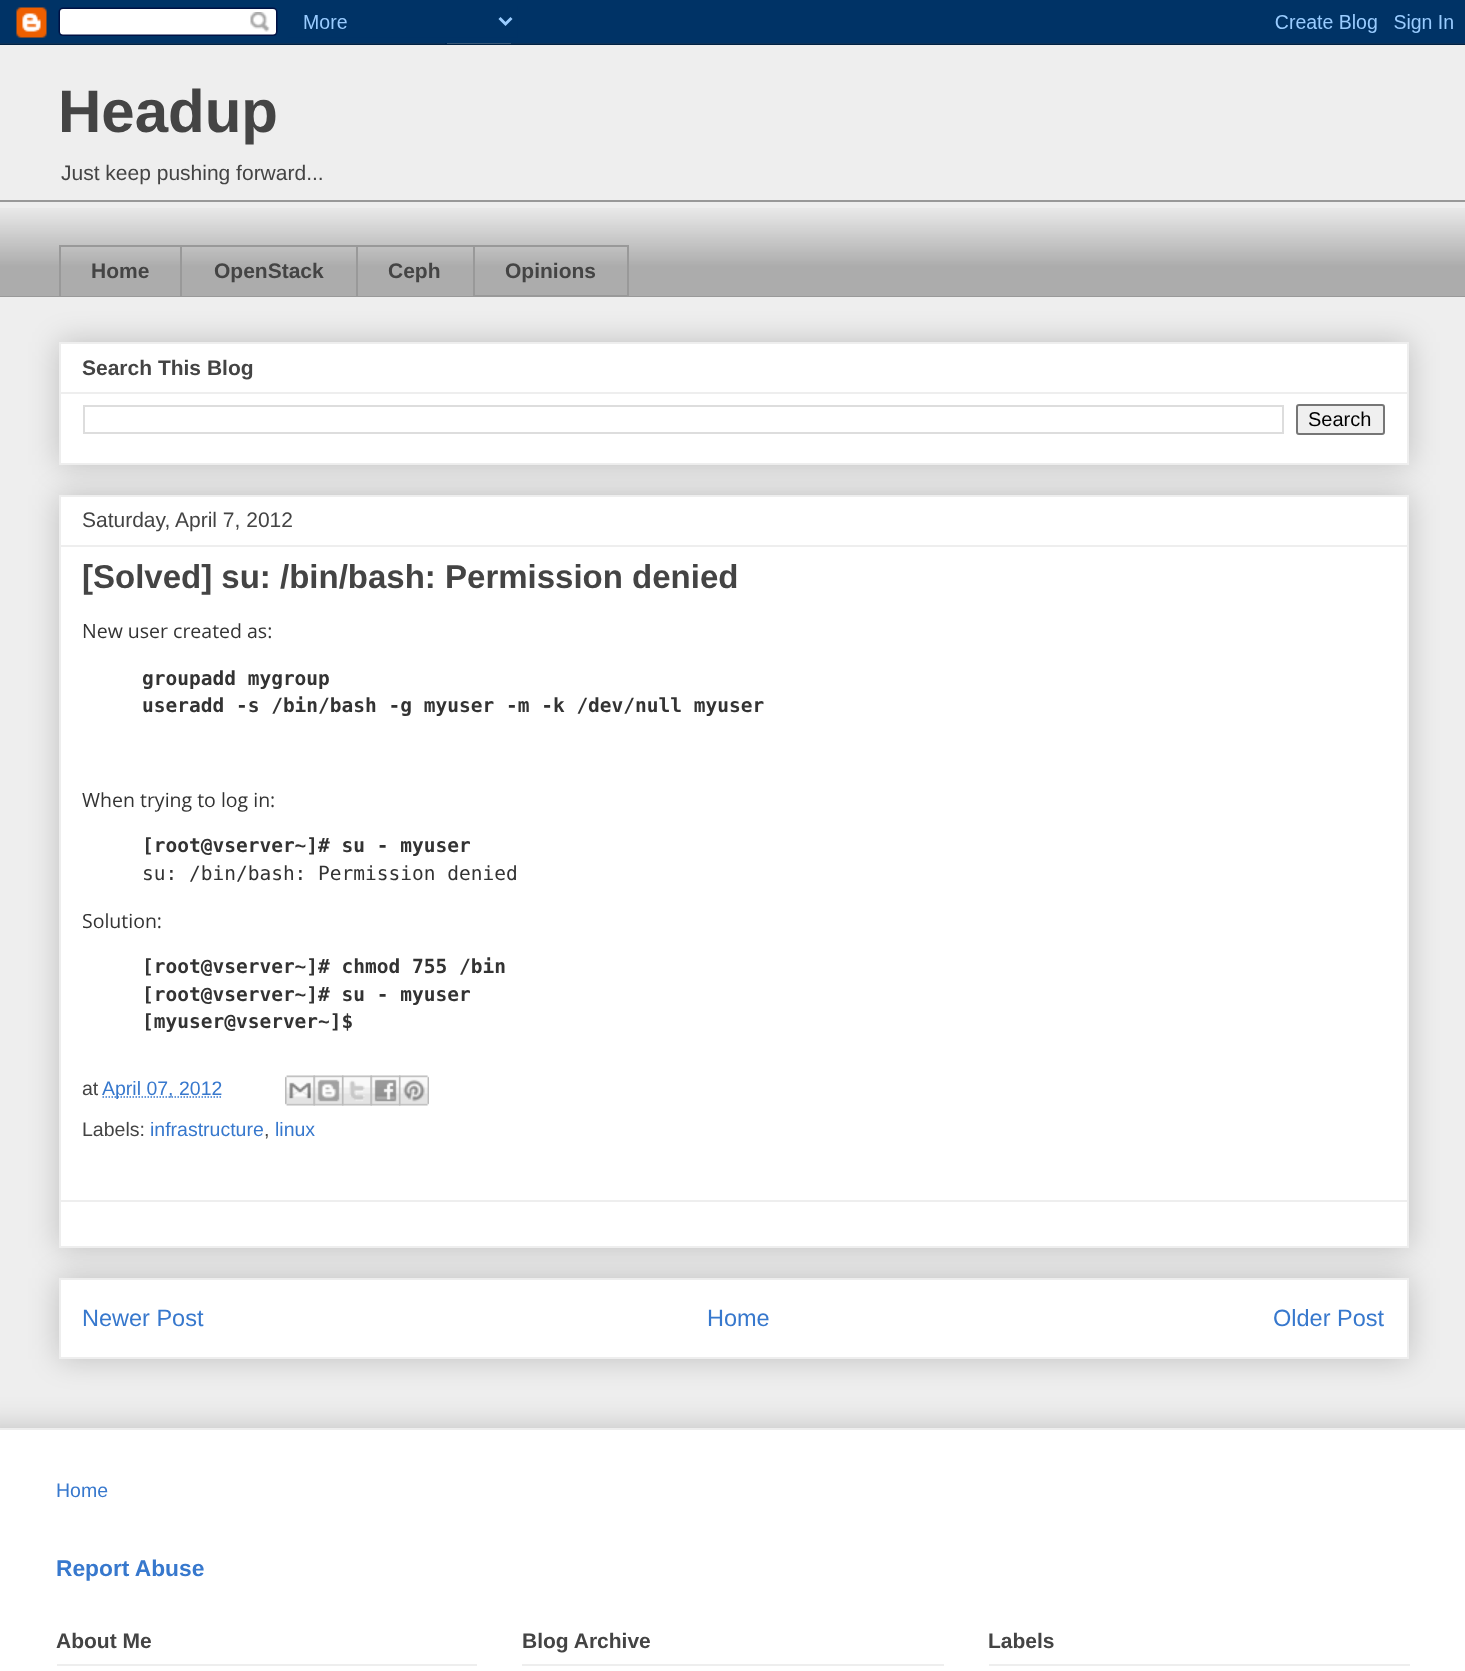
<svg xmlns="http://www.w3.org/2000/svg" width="1465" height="1671">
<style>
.a{font:bold 60px Liberation Sans;fill:#444}
.b{font:21px Liberation Sans;fill:#444}
.c{font:bold 21px Liberation Sans;fill:#444}
.d{font:20px Liberation Sans;fill:#000}
.e{font:bold 33px Liberation Sans;fill:#444}
.f{font:19.5px Open Sans;fill:#333}
.g{font:bold 19.5px DejaVu Sans Mono;fill:#333}
.h{font:19.5px DejaVu Sans Mono;fill:#333}
.i{font:19.5px Liberation Sans;fill:#444}
.j{font:19.5px Liberation Sans;fill:#3778cd}
.k{font:23.5px Liberation Sans;fill:#3778cd}
.l{font:bold 22.75px Liberation Sans;fill:#3778cd}
</style>
<rect width="100%" height="100%" fill="#eee"/>
<image href="1.png" x="0" y="0" width="1465" height="45"/>
<image href="2.png" x="0" y="208" width="1465" height="88"/>
<path fill="#999" d="M0 200h1465v2H0z"/>
<path fill="#999" d="M59 245h414v2H59z"/>
<path fill="#999" d="M59 245h2v52H59z"/>
<path fill="#999" d="M180 245h2v52H180z"/>
<path fill="#999" d="M356 245h2v52H356z"/>
<path fill="none" stroke="#999" stroke-width="2" d="M474 246h154v50H474z"/>
<path fill="#999" d="M0 296h1465v1H0z"/>
<path fill="#00000033" filter="blur(15px)" d="M59 342h1350v123H59z"/>
<path fill="#fff" stroke="#eee" stroke-width="2" d="M60 343h1348v121H60z"/>
<path fill="#eee" d="M60 392h1347v2H60z"/>
<path fill="none" stroke="#ddd" stroke-width="2" d="M84 406h1199v27H84z"/>
<rect fill="#efefef" stroke="#767676" stroke-width="2" x="1297" y="405" width="87" height="29" rx="2"/>
<path fill="#00000033" filter="blur(15px)" d="M59 1278h1350v81H59z"/>
<path fill="#fff" stroke="#eee" stroke-width="2" d="M60 1279h1348v79H60z"/>
<path fill="#00000033" filter="blur(15px)" d="M59 495h1350v753H59z"/>
<path fill="#fff" stroke="#eee" stroke-width="2" d="M60 496h1348v751H60z"/>
<path fill="#eee" d="M60 545h1347v2H60z"/>
<path fill="none" stroke="#3778cd" stroke-width="1.5" stroke-dasharray="1.5 1.5" d="M102.5 1097h120"/>
<image href="3.png" x="285" y="1075" width="30" height="31"/>
<image href="4.png" x="313" y="1075" width="31" height="31"/>
<image href="5.png" x="342" y="1075" width="30" height="31"/>
<image href="6.png" x="370" y="1075" width="31" height="31"/>
<image href="7.png" x="399" y="1075" width="30" height="31"/>
<path fill="#eee" d="M60 1200h1347v2H60z"/>
<path fill="#00000033" filter="blur(15px)" d="M-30 1428h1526v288H-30z"/>
<path fill="#fff" d="M0 1430h1465v241H0z"/>
<path fill="#eee" d="M0 1428h1465v2H0z"/>
<path fill="#eee" d="M57 1664h420v2H57z"/>
<path fill="#eee" d="M522 1664h422v2H522z"/>
<path fill="#eee" d="M989 1664h421v2H989z"/>
<text class="a" x="58" y="132">Headup</text>
<text class="b" x="61" y="180">Just keep pushing forward...</text>
<text class="c" x="91" y="278">Home</text>
<text class="c" x="214" y="278">OpenStack</text>
<text class="c" x="388" y="278">Ceph</text>
<text class="c" x="505" y="278">Opinions</text>
<text class="c" x="82" y="375">Search This Blog</text>
<text class="d" x="1308" y="426">Search</text>
<text class="b" x="82" y="527">Saturday, April 7, 2012</text>
<text class="e" x="82" y="588">[Solved] su: /bin/bash: Permission denied</text>
<text class="f" x="82" y="638">New user created as:</text>
<text class="g" x="142" y="685">groupadd mygroup</text>
<text class="g" x="142" y="712">useradd -s /bin/bash -g myuser -m -k /dev/null myuser</text>
<text class="f" x="82" y="807">When trying to log in:</text>
<text class="g" x="142" y="852">[root@vserver~]# su - myuser</text>
<text class="h" x="142" y="880">su: /bin/bash: Permission denied</text>
<text class="f" x="82" y="928">Solution:</text>
<text class="g" x="142" y="973">[root@vserver~]# chmod 755 /bin</text>
<text class="g" x="142" y="1001">[root@vserver~]# su - myuser</text>
<text class="g" x="142" y="1028">[myuser@vserver~]$</text>
<text class="i" x="82" y="1095">at</text>
<text class="j" x="102" y="1095">April 07, 2012</text>
<text class="i" x="82" y="1136">Labels:</text>
<text class="j" x="150" y="1136">infrastructure</text>
<text class="i" x="264" y="1136">,</text>
<text class="j" x="275" y="1136">linux</text>
<text class="k" x="82" y="1326">Newer Post</text>
<text class="k" x="707" y="1326">Home</text>
<text class="k" x="1273" y="1326">Older Post</text>
<text class="j" x="56" y="1497">Home</text>
<text class="l" x="56" y="1576">Report Abuse</text>
<text class="c" x="56" y="1648">About Me</text>
<text class="c" x="522" y="1648">Blog Archive</text>
<text class="c" x="988" y="1648">Labels</text>
</svg>
